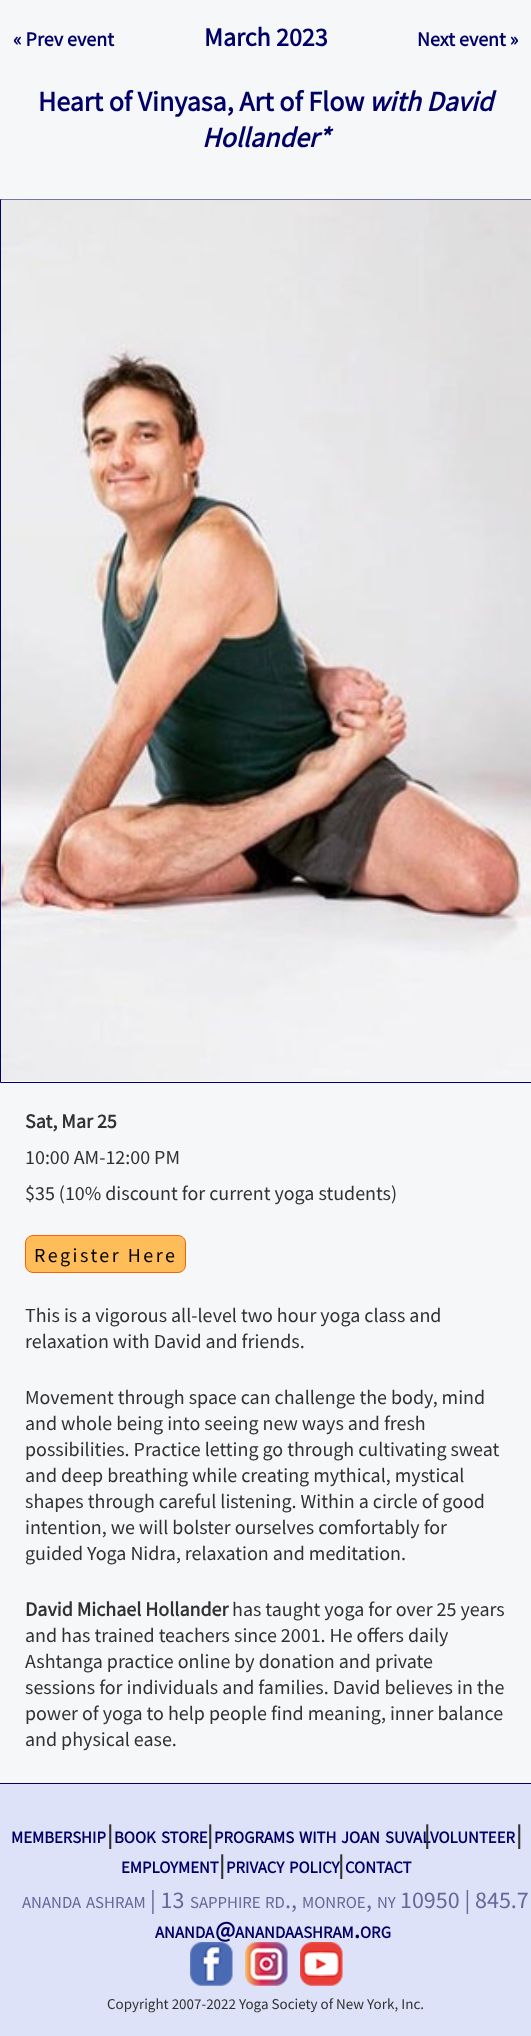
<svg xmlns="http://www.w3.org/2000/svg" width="531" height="2036">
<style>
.a{font:bold 26px Source Sans Pro;fill:#006}
.b{font:bold 20px Source Sans Pro;fill:#006}
.c{font:bold 28px Source Sans Pro;fill:#006}
.d{font:italic bold 28px Source Sans Pro;fill:#006}
.e{font:bold 20px Source Sans Pro;fill:#313131}
.f{font:20px Source Sans Pro;fill:#313131}
.g{font:20px Source Sans Pro;letter-spacing:2.5px;fill:#000}
.h{font:bold 16.75px Source Sans Pro;fill:#006}
.i{font:bold 24px Source Sans Pro;fill:#313131}
.j{font:16.75px Source Sans Pro;fill:#669}
.k{font:24px Source Sans Pro;fill:#669}
.l{font:bold 24px Source Sans Pro;fill:#006}
.m{font:15px Source Sans Pro;fill:#313131}
</style>
<rect width="100%" height="100%" fill="#dee2f9"/>
<path fill="#f5f7f9" d="M0 0h531v1783H0z"/>
<path fill="none" stroke="#006" d="M0.5 199.5h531v883H0.5z"/>
<image href="1.png" x="1" y="199" width="530" height="882"/>
<rect fill="#ffbd5a" stroke="#f76209" x="25.5" y="1235.5" width="160" height="37" rx="7.5"/>
<path fill="#006" d="M0 1783h531v1H0z"/>
<image href="2.png" x="190" y="1942" width="43" height="44"/>
<image href="3.png" x="245" y="1942" width="43" height="44"/>
<image href="4.png" x="300" y="1942" width="43" height="44"/>
<text class="a" x="204" y="46">March 2023</text>
<text class="b" x="13" y="46">« Prev event</text>
<text class="b" x="417" y="46">Next event »</text>
<text class="c" x="38" y="111">Heart of Vinyasa, Art of Flow</text>
<text class="d" x="369" y="111">with David</text>
<text class="d" x="202" y="147">Hollander*</text>
<text class="e" x="25" y="1128">Sat, Mar 25</text>
<text class="f" x="25" y="1164">10:00 AM-12:00 PM</text>
<text class="f" x="25" y="1200">$35 (10% discount for current yoga students)</text>
<text class="g" x="34" y="1262">Register Here</text>
<text class="f" x="25" y="1322">This is a vigorous all-level two hour yoga class and</text>
<text class="f" x="25" y="1348">relaxation with David and friends.</text>
<text class="f" x="25" y="1404">Movement through space can challenge the body, mind</text>
<text class="f" x="25" y="1430">and whole being into seeing new ways and fresh</text>
<text class="f" x="25" y="1456">possibilities. Practice letting go through cultivating sweat</text>
<text class="f" x="25" y="1482">and deep breathing while creating mythical, mystical</text>
<text class="f" x="25" y="1508">shapes through careful listening. Within a circle of good</text>
<text class="f" x="25" y="1534">intention, we will bolster ourselves comfortably for</text>
<text class="f" x="25" y="1560">guided Yoga Nidra, relaxation and meditation.</text>
<text class="e" x="25" y="1616">David Michael Hollander</text>
<text class="f" x="232" y="1616">has taught yoga for over 25 years</text>
<text class="f" x="25" y="1642">and has trained teachers since 2001. He offers daily</text>
<text class="f" x="25" y="1668">Ashtanga practice online by donation and private</text>
<text class="f" x="25" y="1694">sessions for individuals and families. David believes in the</text>
<text class="f" x="25" y="1720">power of yoga to help people find meaning, inner balance</text>
<text class="f" x="25" y="1746">and physical ease.</text>
<text class="h" x="11" y="1843">MEMBERSHIP</text>
<text class="i" x="107" y="1843">|</text>
<text class="h" x="114" y="1843">BOOK</text>
<text class="h" x="161" y="1843">STORE</text>
<text class="i" x="207" y="1843">|</text>
<text class="h" x="214" y="1843">PROGRAMS</text>
<text class="h" x="341" y="1843">JOAN</text>
<text class="i" x="516" y="1843">|</text>
<text class="h" x="299" y="1843">WITH</text>
<text class="h" x="385" y="1843">SUVAL</text>
<text class="i" x="424" y="1843">|</text>
<text class="h" x="430" y="1843">VOLUNTEER</text>
<text class="h" x="121" y="1873">EMPLOYMENT</text>
<text class="i" x="219" y="1873">|</text>
<text class="h" x="226" y="1873">PRIVACY</text>
<text class="h" x="289" y="1873">POLICY</text>
<text class="i" x="338" y="1873">|</text>
<text class="h" x="345" y="1873">CONTACT</text>
<text class="j" x="22" y="1908">ANANDA</text>
<text class="j" x="86" y="1908">ASHRAM</text>
<text class="k" x="150" y="1908">| 13</text>
<text class="j" x="190" y="1908">SAPPHIRE</text>
<text class="j" x="265" y="1908">RD</text>
<text class="j" x="302" y="1908">MONROE</text>
<text class="j" x="377" y="1908">NY</text>
<text class="k" x="400" y="1908">10950 | 845.7</text>
<text class="k" x="285" y="1908">.,</text>
<text class="k" x="366" y="1908">,</text>
<text class="h" x="155" y="1938">ANANDA</text>
<text class="l" x="215" y="1938">@</text>
<text class="h" x="235" y="1938">ANANDAASHRAM</text>
<text class="l" x="354" y="1938">.</text>
<text class="h" x="360" y="1938">ORG</text>
<text class="m" x="107" y="2009">Copyright 2007-2022 Yoga Society of New York, Inc.</text>
</svg>
